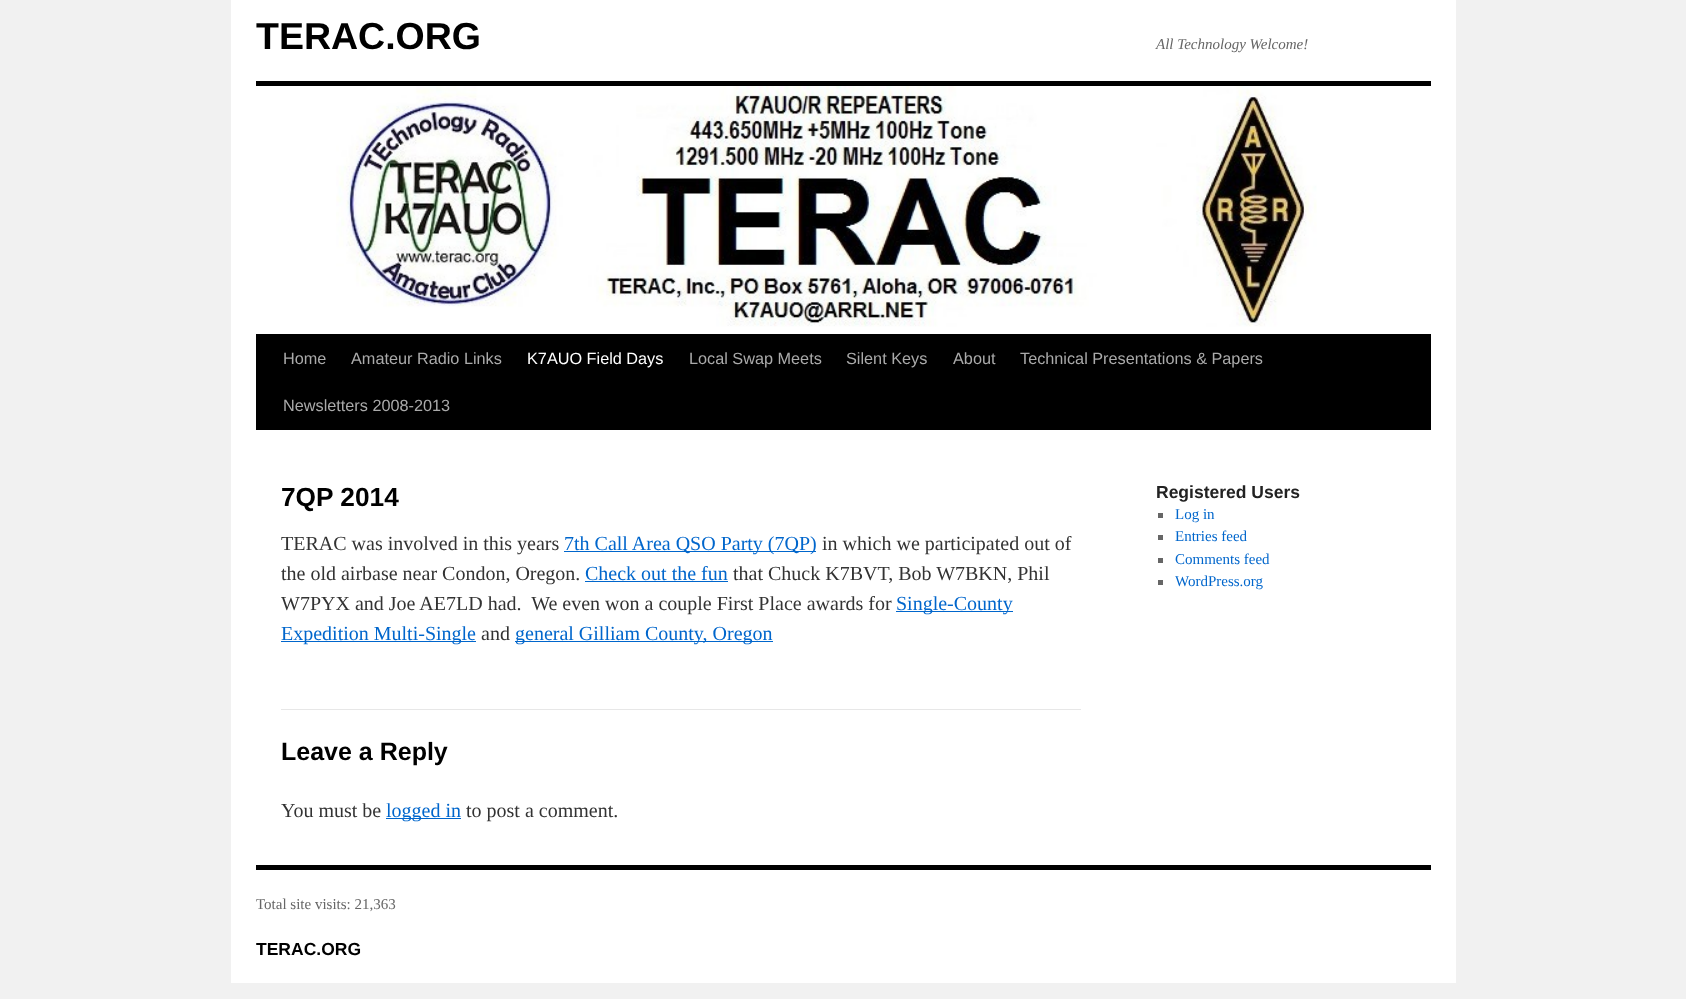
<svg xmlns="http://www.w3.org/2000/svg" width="1686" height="999">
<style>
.a{font:bold 37.5px Liberation Sans;fill:#000}
.b{font:italic 15px Liberation Serif;fill:#666}
.c{font:16.25px Liberation Sans;fill:#aaa}
.d{font:16.25px Liberation Sans;fill:#fff}
.e{font:bold 26.25px Liberation Sans;fill:#000}
.f{font:20px Liberation Serif;fill:#333}
.g{font:20px Liberation Serif;fill:#06c}
.h{font:bold 25px Liberation Sans;fill:#000}
.i{font:bold 17.5px Liberation Sans;fill:#222}
.j{font:15px Liberation Serif;fill:#06c}
.k{font:15px Liberation Serif;fill:#666}
.l{font:bold 17.5px Liberation Sans;fill:#000}
</style>
<rect width="100%" height="100%" fill="#f1f1f1"/>
<path fill="#fff" d="M231 0h1225v983H231z"/>
<path fill="#000" d="M256 81h1175v5H256z"/>
<path fill="#000" d="M256 334h1175v96H256z"/>
<image href="1.png" x="336" y="86" width="981" height="241"/>
<path fill="#06c" d="M564 551h252v1H564z"/>
<path fill="#06c" d="M585 581h143v1H585z"/>
<path fill="#06c" d="M896 611h117v1H896z"/>
<path fill="#06c" d="M281 641h195v1H281z"/>
<path fill="#06c" d="M515 641h258v1H515z"/>
<path fill="#e7e7e7" d="M281 709h800v1H281z"/>
<path fill="#06c" d="M386 818h75v1H386z"/>
<path fill="#666" d="M1158 513h5v5H1158z"/>
<path fill="#666" d="M1158 535h5v5H1158z"/>
<path fill="#666" d="M1158 558h5v5H1158z"/>
<path fill="#666" d="M1158 580h5v5H1158z"/>
<path fill="#000" d="M256 865h1175v5H256z"/>
<text class="a" x="256" y="49">TERAC.ORG</text>
<text class="b" x="1156" y="49">All Technology Welcome!</text>
<text class="c" x="283" y="364">Home</text>
<text class="c" x="351" y="364">Amateur Radio Links</text>
<text class="d" x="527" y="364">K7AUO Field Days</text>
<text class="c" x="689" y="364">Local Swap Meets</text>
<text class="c" x="846" y="364">Silent Keys</text>
<text class="c" x="953" y="364">About</text>
<text class="c" x="1020" y="364">Technical Presentations &amp; Papers</text>
<text class="c" x="283" y="411">Newsletters 2008-2013</text>
<text class="e" x="281" y="506">7QP 2014</text>
<text class="f" x="281" y="550">TERAC was involved in this years</text>
<text class="g" x="564" y="550">7th Call Area QSO Party (7QP)</text>
<text class="f" x="822" y="550">in which we participated out of</text>
<text class="f" x="281" y="580">the old airbase near Condon, Oregon.</text>
<text class="g" x="585" y="580">Check out the fun</text>
<text class="f" x="733" y="580">that Chuck K7BVT, Bob W7BKN, Phil</text>
<text class="f" xml:space="preserve" x="281" y="610">W7PYX and Joe AE7LD had.  We even won a couple First Place awards for</text>
<text class="g" x="896" y="610">Single-County</text>
<text class="g" x="281" y="640">Expedition Multi-Single</text>
<text class="f" x="481" y="640">and</text>
<text class="g" x="515" y="640">general Gilliam County, Oregon</text>
<text class="h" x="281" y="760">Leave a Reply</text>
<text class="f" x="281" y="817">You must be</text>
<text class="g" x="386" y="817">logged in</text>
<text class="f" x="466" y="817">to post a comment.</text>
<text class="i" x="1156" y="498">Registered Users</text>
<text class="j" x="1175" y="519">Log in</text>
<text class="j" x="1175" y="541">Entries feed</text>
<text class="j" x="1175" y="564">Comments feed</text>
<text class="j" x="1175" y="586">WordPress.org</text>
<text class="k" x="256" y="909">Total site visits: 21,363</text>
<text class="l" x="256" y="955">TERAC.ORG</text>
</svg>
